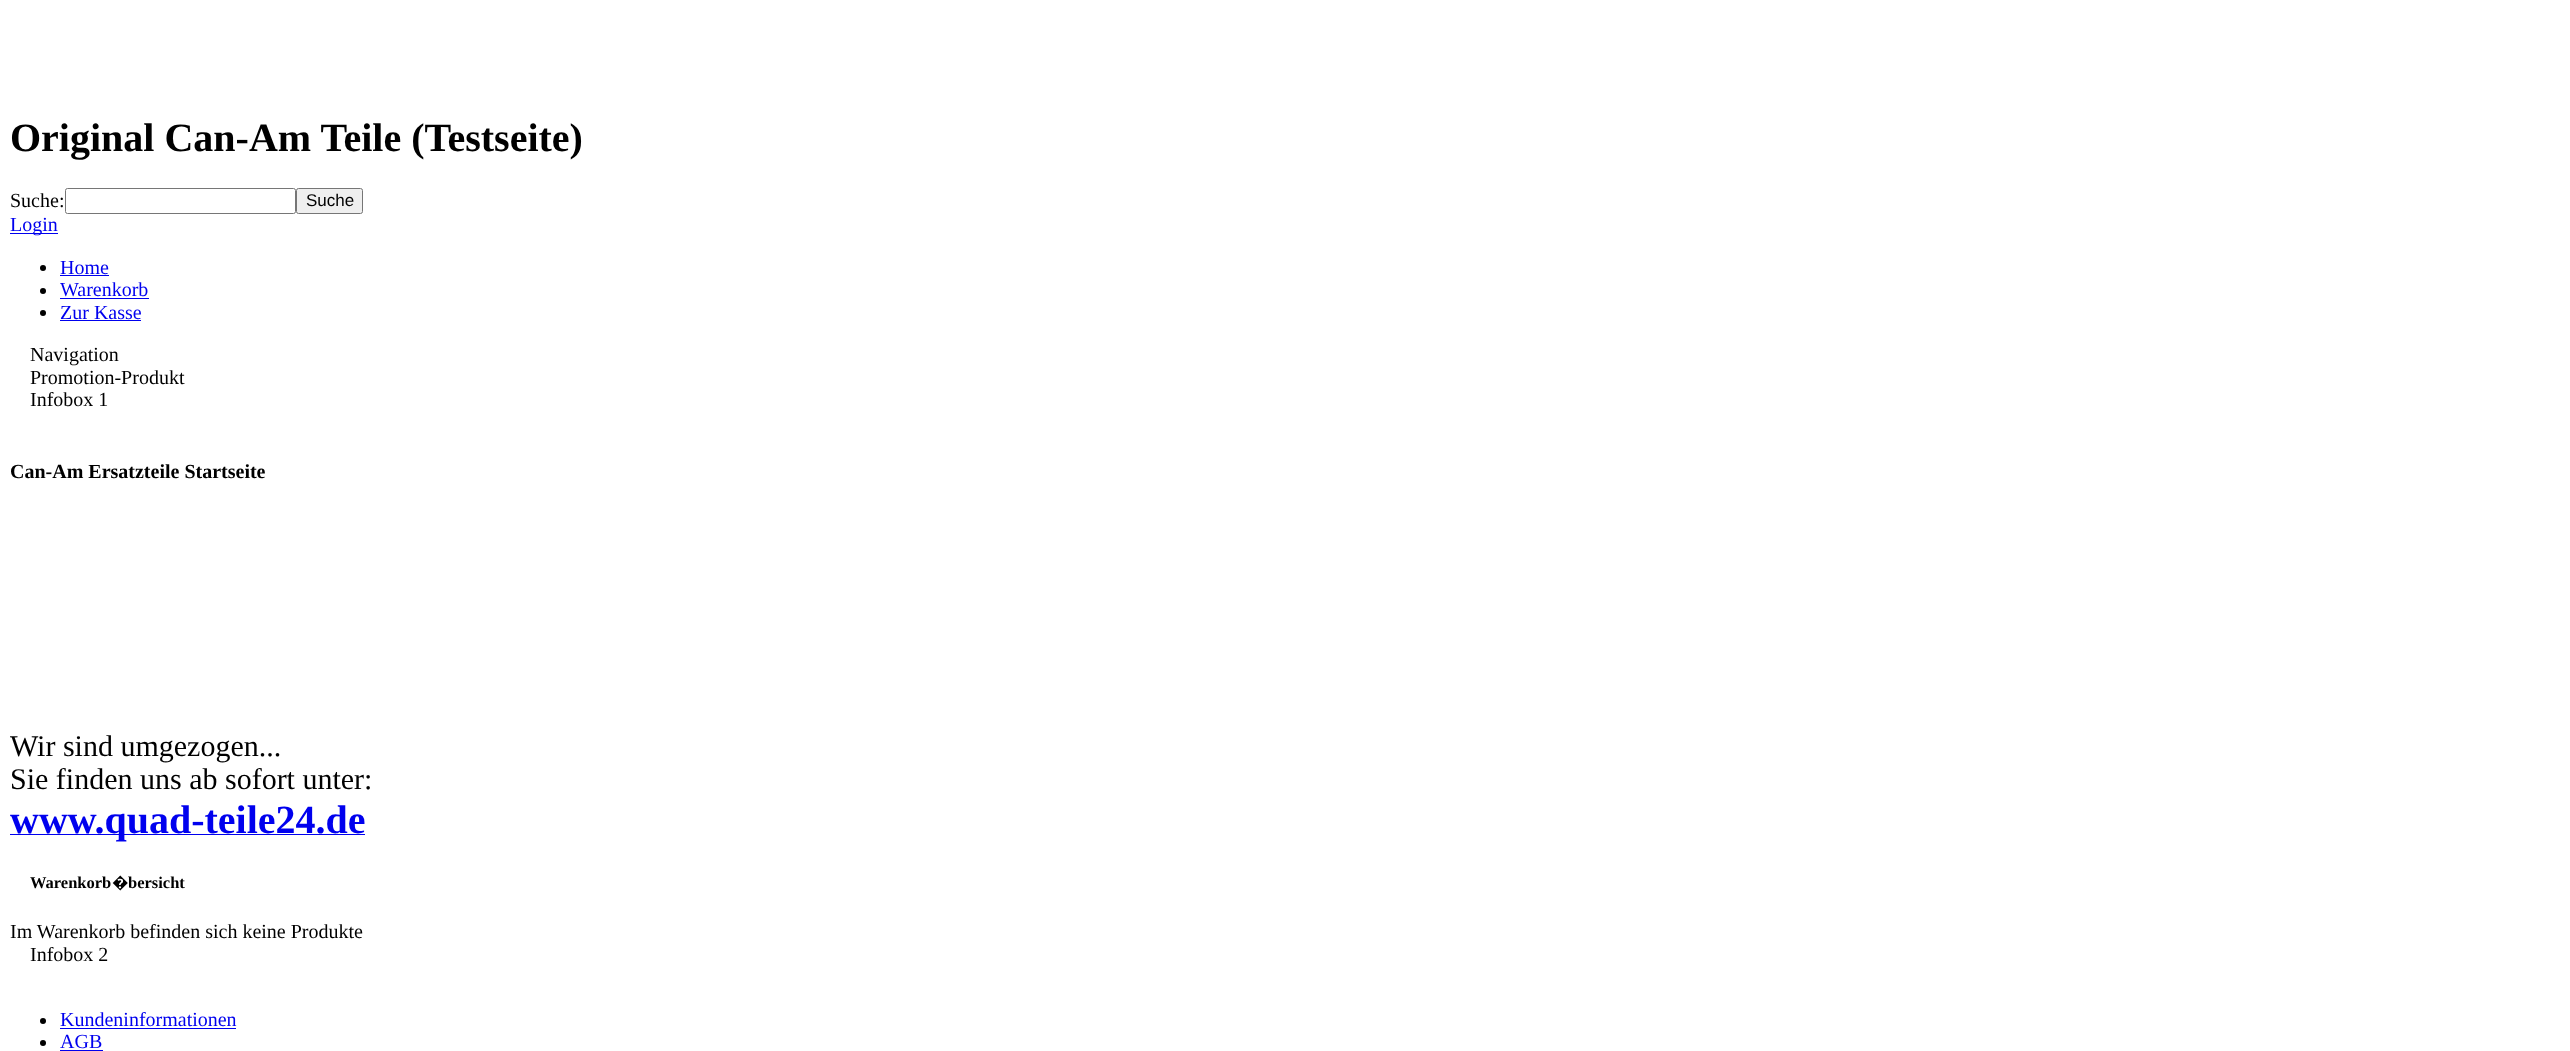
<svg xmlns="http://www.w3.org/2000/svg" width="2570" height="1051">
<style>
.a{font:bold 40px Liberation Serif;fill:#000}
.b{font:20px Liberation Serif;fill:#000}
.c{font:17px Liberation Sans;fill:#000}
.d{font:20px Liberation Serif;fill:#00e}
.e{font:bold 20px Liberation Serif;fill:#000}
.f{font:30px Liberation Serif;fill:#000}
.g{font:bold 40px Liberation Serif;fill:#00e}
.h{font:bold 16.5px Liberation Serif;fill:#000}
.i{font:bold 16.5px Noto Sans;fill:#000}
</style>
<rect width="100%" height="100%" fill="#fff"/>
<rect fill="none" stroke="#767676" x="65.5" y="188.5" width="230" height="25" rx="2"/>
<rect fill="#efefef" stroke="#767676" x="296.5" y="188.5" width="66" height="25" rx="2"/>
<path fill="#00e" d="M10 233h48v1H10z"/>
<circle fill="#000" cx="43" cy="268" r="3"/>
<path fill="#00e" d="M60 275h49v1H60z"/>
<circle fill="#000" cx="43" cy="291" r="3"/>
<path fill="#00e" d="M60 298h89v1H60z"/>
<circle fill="#000" cx="43" cy="313" r="3"/>
<path fill="#00e" d="M60 320h81v1H60z"/>
<path fill="#00e" d="M10 834h355v1H10z"/>
<circle fill="#000" cx="43" cy="1021" r="3"/>
<path fill="#00e" d="M60 1028h176v1H60z"/>
<circle fill="#000" cx="43" cy="1043" r="3"/>
<path fill="#00e" d="M60 1050h43v1H60z"/>
<text class="a" x="10" y="151">Original Can-Am Teile (Testseite)</text>
<text class="b" x="10" y="207">Suche:</text>
<text class="c" x="306" y="206">Suche</text>
<text class="d" x="10" y="231">Login</text>
<text class="d" x="60" y="274">Home</text>
<text class="d" x="60" y="296">Warenkorb</text>
<text class="d" x="60" y="319">Zur Kasse</text>
<text class="b" x="30" y="361">Navigation</text>
<text class="b" x="30" y="384">Promotion-Produkt</text>
<text class="b" x="30" y="406">Infobox 1</text>
<text class="e" x="10" y="478">Can-Am Ersatzteile Startseite</text>
<text class="f" x="10" y="756">Wir sind umgezogen...</text>
<text class="f" x="10" y="789">Sie finden uns ab sofort unter:</text>
<text class="g" x="10" y="833">www.quad-teile24.de</text>
<text class="h" x="30" y="888">Warenkorb</text>
<text class="i" x="112" y="888">�</text>
<text class="h" x="128" y="888">bersicht</text>
<text class="b" x="10" y="938">Im Warenkorb befinden sich keine Produkte</text>
<text class="b" x="30" y="961">Infobox 2</text>
<text class="d" x="60" y="1026">Kundeninformationen</text>
<text class="d" x="60" y="1048">AGB</text>
</svg>
